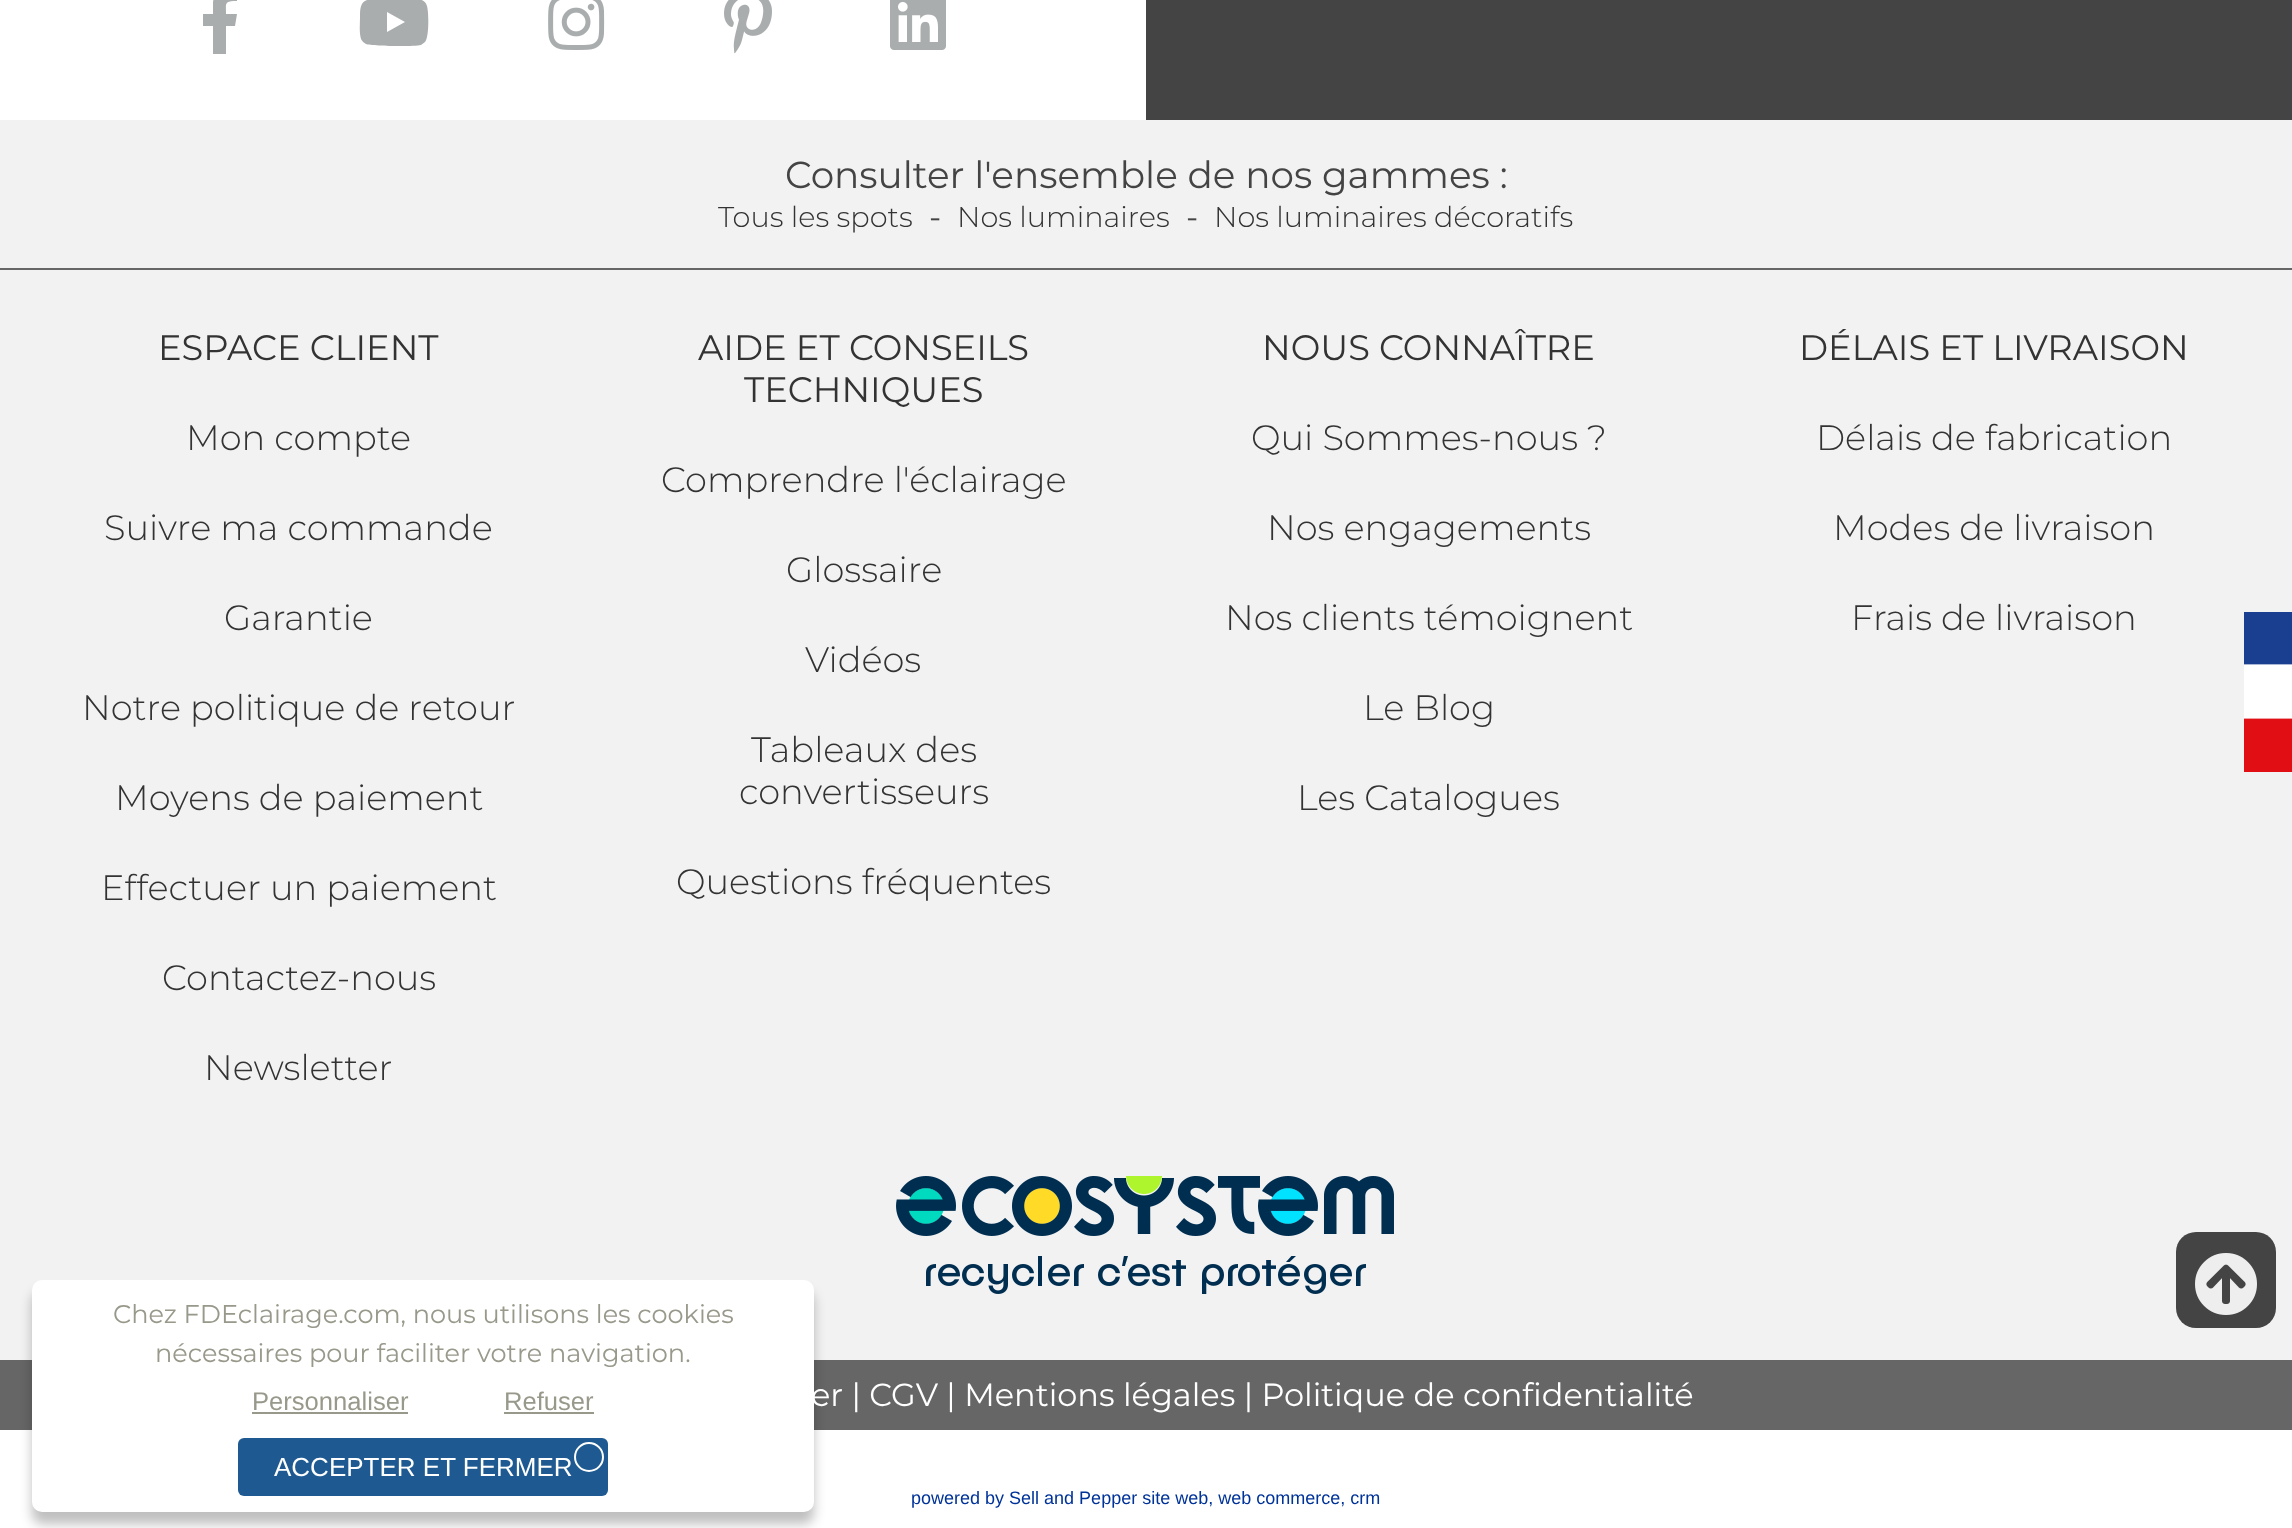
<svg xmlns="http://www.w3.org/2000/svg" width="2292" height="1528">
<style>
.a{font:37.4px Montserrat;fill:#444}
.b{font:300 28.75px Montserrat;fill:#333}
.c{font:32px Montserrat;fill:#444}
.d{font:35.25px Montserrat;fill:#333}
.e{font:300 35.25px Montserrat;fill:#333}
.f{font:32px Montserrat;fill:#fff}
.g{font:25.6px Montserrat;fill:#98988b}
.h{font:25.6px Liberation Sans;fill:#98988b}
.i{font:26px Liberation Sans;fill:#fff}
.j{font:18px Liberation Sans;fill:#039}
</style>
<rect width="100%" height="100%" fill="#fff"/>
<path fill="#aaadae" d="M235 26h-9v28h-13v-28h-10v-12h10v-12c2-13 14-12 24-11v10c-13 0-11 2-11 13h11z"/>
<path fill="#aaadae" d="M427 6c2 7 2 32-2 36l-4 3c-9 2-50 1-55-1c-2-1-4-3-5-5c-2-7-1-15-1-22c0-11 1-17 12-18l15-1h21c6 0 17 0 19 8zm-40 26l18-10l-18-10z"/>
<image href="1.png" x="548" y="0" width="57" height="50"/>
<image href="2.png" x="724" y="0" width="48" height="54"/>
<image href="3.png" x="890" y="0" width="56" height="50"/>
<path fill="#444" d="M1146 0h1146v120H1146z"/>
<path fill="#f3f2f3" d="M0 120h2292v148H0z"/>
<path fill="#f3f2f3" d="M0 270h2292v1090H0z"/>
<path fill="#666" d="M0 268h2292v2H0z"/>
<image href="4.png" x="2244" y="612" width="48" height="160"/>
<image href="5.png" x="896" y="1176" width="498" height="118"/>
<path fill="#666" d="M0 1360h2292v70H0z"/>
<rect fill="#444" x="2176" y="1232" width="100" height="96" rx="20"/>
<image href="6.png" x="2195" y="1253" width="62" height="62"/>
<rect fill="#00000040" filter="blur(6px)" x="32" y="1292" width="782" height="232" rx="10"/>
<rect fill="#fff" x="32" y="1280" width="782" height="232" rx="10"/>
<path fill="#98988b" d="M252 1412h156v2H252z"/>
<path fill="#98988b" d="M504 1412h90v2H504z"/>
<rect fill="#1e5a91" x="238" y="1438" width="370" height="58" rx="6"/>
<circle fill="none" stroke="#fff" stroke-width="2" cx="589" cy="1457" r="14"/>
<text class="a" x="785" y="188">Consulter l'ensemble de nos gammes :</text>
<text class="b" x="718" y="227">Tous les spots</text>
<text class="c" x="929" y="228">-</text>
<text class="b" x="957" y="227">Nos luminaires</text>
<text class="c" x="1186" y="228">-</text>
<text class="b" x="1214" y="227">Nos luminaires décoratifs</text>
<text class="d" x="158" y="360">ESPACE CLIENT</text>
<text class="e" x="186" y="450">Mon compte</text>
<text class="e" x="104" y="540">Suivre ma commande</text>
<text class="e" x="224" y="630">Garantie</text>
<text class="e" x="82" y="720">Notre politique de retour</text>
<text class="e" x="115" y="810">Moyens de paiement</text>
<text class="e" x="101" y="900">Effectuer un paiement</text>
<text class="e" x="162" y="990">Contactez-nous</text>
<text class="e" x="204" y="1080">Newsletter</text>
<text class="d" x="698" y="360">AIDE ET CONSEILS</text>
<text class="d" x="744" y="402">TECHNIQUES</text>
<text class="e" x="661" y="492">Comprendre l'éclairage</text>
<text class="e" x="786" y="582">Glossaire</text>
<text class="e" x="805" y="672">Vidéos</text>
<text class="e" x="751" y="762">Tableaux des</text>
<text class="e" x="739" y="804">convertisseurs</text>
<text class="e" x="676" y="894">Questions fréquentes</text>
<text class="d" x="1262" y="360">NOUS CONNAÎTRE</text>
<text class="e" x="1251" y="450">Qui Sommes-nous ?</text>
<text class="e" x="1267" y="540">Nos engagements</text>
<text class="e" x="1225" y="630">Nos clients témoignent</text>
<text class="e" x="1363" y="720">Le Blog</text>
<text class="e" x="1297" y="810">Les Catalogues</text>
<text class="d" x="1799" y="360">DÉLAIS ET LIVRAISON</text>
<text class="e" x="1816" y="450">Délais de fabrication</text>
<text class="e" x="1833" y="540">Modes de livraison</text>
<text class="e" x="1851" y="630">Frais de livraison</text>
<text class="f" x="811" y="1406">er | CGV | Mentions légales | Politique de confidentialité</text>
<text class="g" x="113" y="1323">Chez FDEclairage.com, nous utilisons les cookies</text>
<text class="g" x="155" y="1362">nécessaires pour faciliter votre navigation.</text>
<text class="h" x="252" y="1410">Personnaliser</text>
<text class="h" x="504" y="1410">Refuser</text>
<text class="i" x="274" y="1476">ACCEPTER ET FERMER</text>
<text class="j" x="911" y="1504">powered by Sell and Pepper site web, web commerce, crm</text>
</svg>
